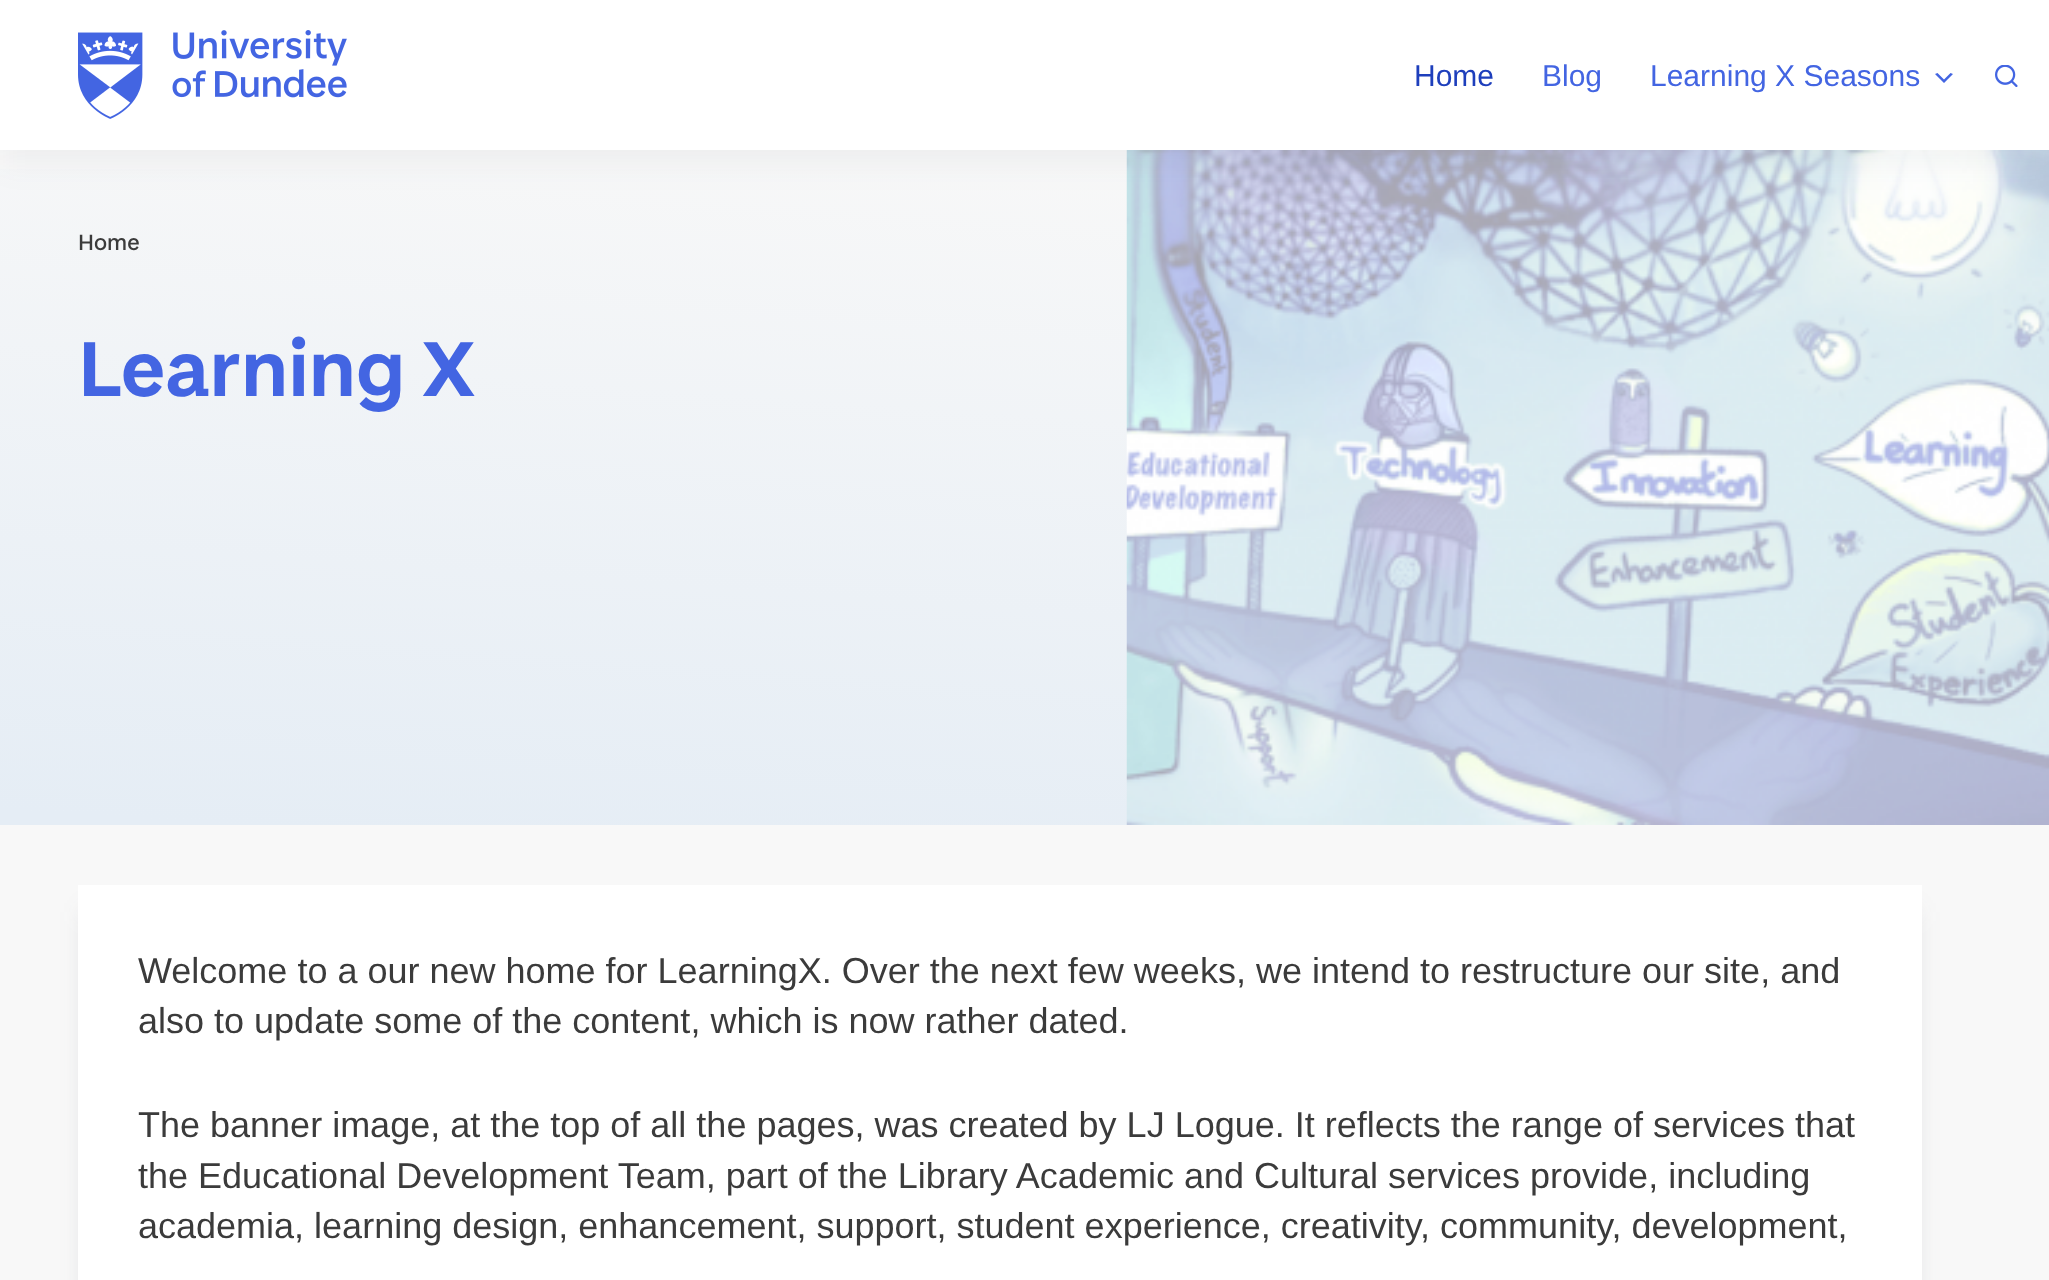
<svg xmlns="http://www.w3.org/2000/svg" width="2049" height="1280">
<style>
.a{font:30px Liberation Sans;fill:#1e3fbc}
.b{font:30px Liberation Sans;fill:#4365e2}
.c{font:500 24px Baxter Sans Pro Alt;fill:#3b3b3b}
.d{font:bold 84px Baxter Sans Pro Alt;fill:#4365e2}
.e{font:36px Liberation Sans;fill:#3b3b3b}
</style>
<defs>
<linearGradient id="g1" gradientUnits="userSpaceOnUse" x1="996" y1="895" x2="1053" y2="80"><stop offset="0.02" stop-color="#e5edf5"/><stop offset="0.92" stop-color="#f8f8f8"/></linearGradient>
</defs>
<rect width="100%" height="100%" fill="#f8f8f8"/>
<path fill="url(#g1)" d="M0 169h1127v656H0z"/>
<image href="3.png" x="1126" y="150" width="923" height="675"/>
<path fill="#2c3e500d" filter="blur(15px)" d="M0 15h2049v150H0z"/>
<path fill="#fff" d="M0 0h2049v150H0z"/>
<image href="1.png" x="78" y="30" width="269" height="89"/>
<path fill="#4365e2" d="M1937.5 73l6.5 6.5l6.5-6.5l2.5 1l-9 9l-9-9z"/>
<image href="2.png" x="1995" y="65" width="23" height="22"/>
<path fill="#4850612e" filter="blur(13.5px)" d="M87 912h1826v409H87z"/>
<path fill="#fff" d="M78 885h1844v395H78z"/>
<text class="a" x="1414" y="86">Home</text>
<text class="b" x="1542" y="86">Blog</text>
<text class="b" x="1650" y="86">Learning X Seasons</text>
<text class="c" x="78" y="250">Home</text>
<text class="d" x="78" y="396">Learning X</text>
<text class="e" x="138" y="983">Welcome to a our new home for LearningX. Over the next few weeks, we intend to restructure our site, and</text>
<text class="e" x="138" y="1033">also to update some of the content, which is now rather dated.</text>
<text class="e" x="138" y="1137">The banner image, at the top of all the pages, was created by LJ Logue. It reflects the range of services that</text>
<text class="e" x="138" y="1188">the Educational Development Team, part of the Library Academic and Cultural services provide, including</text>
<text class="e" x="138" y="1238">academia, learning design, enhancement, support, student experience, creativity, community, development,</text>
</svg>
